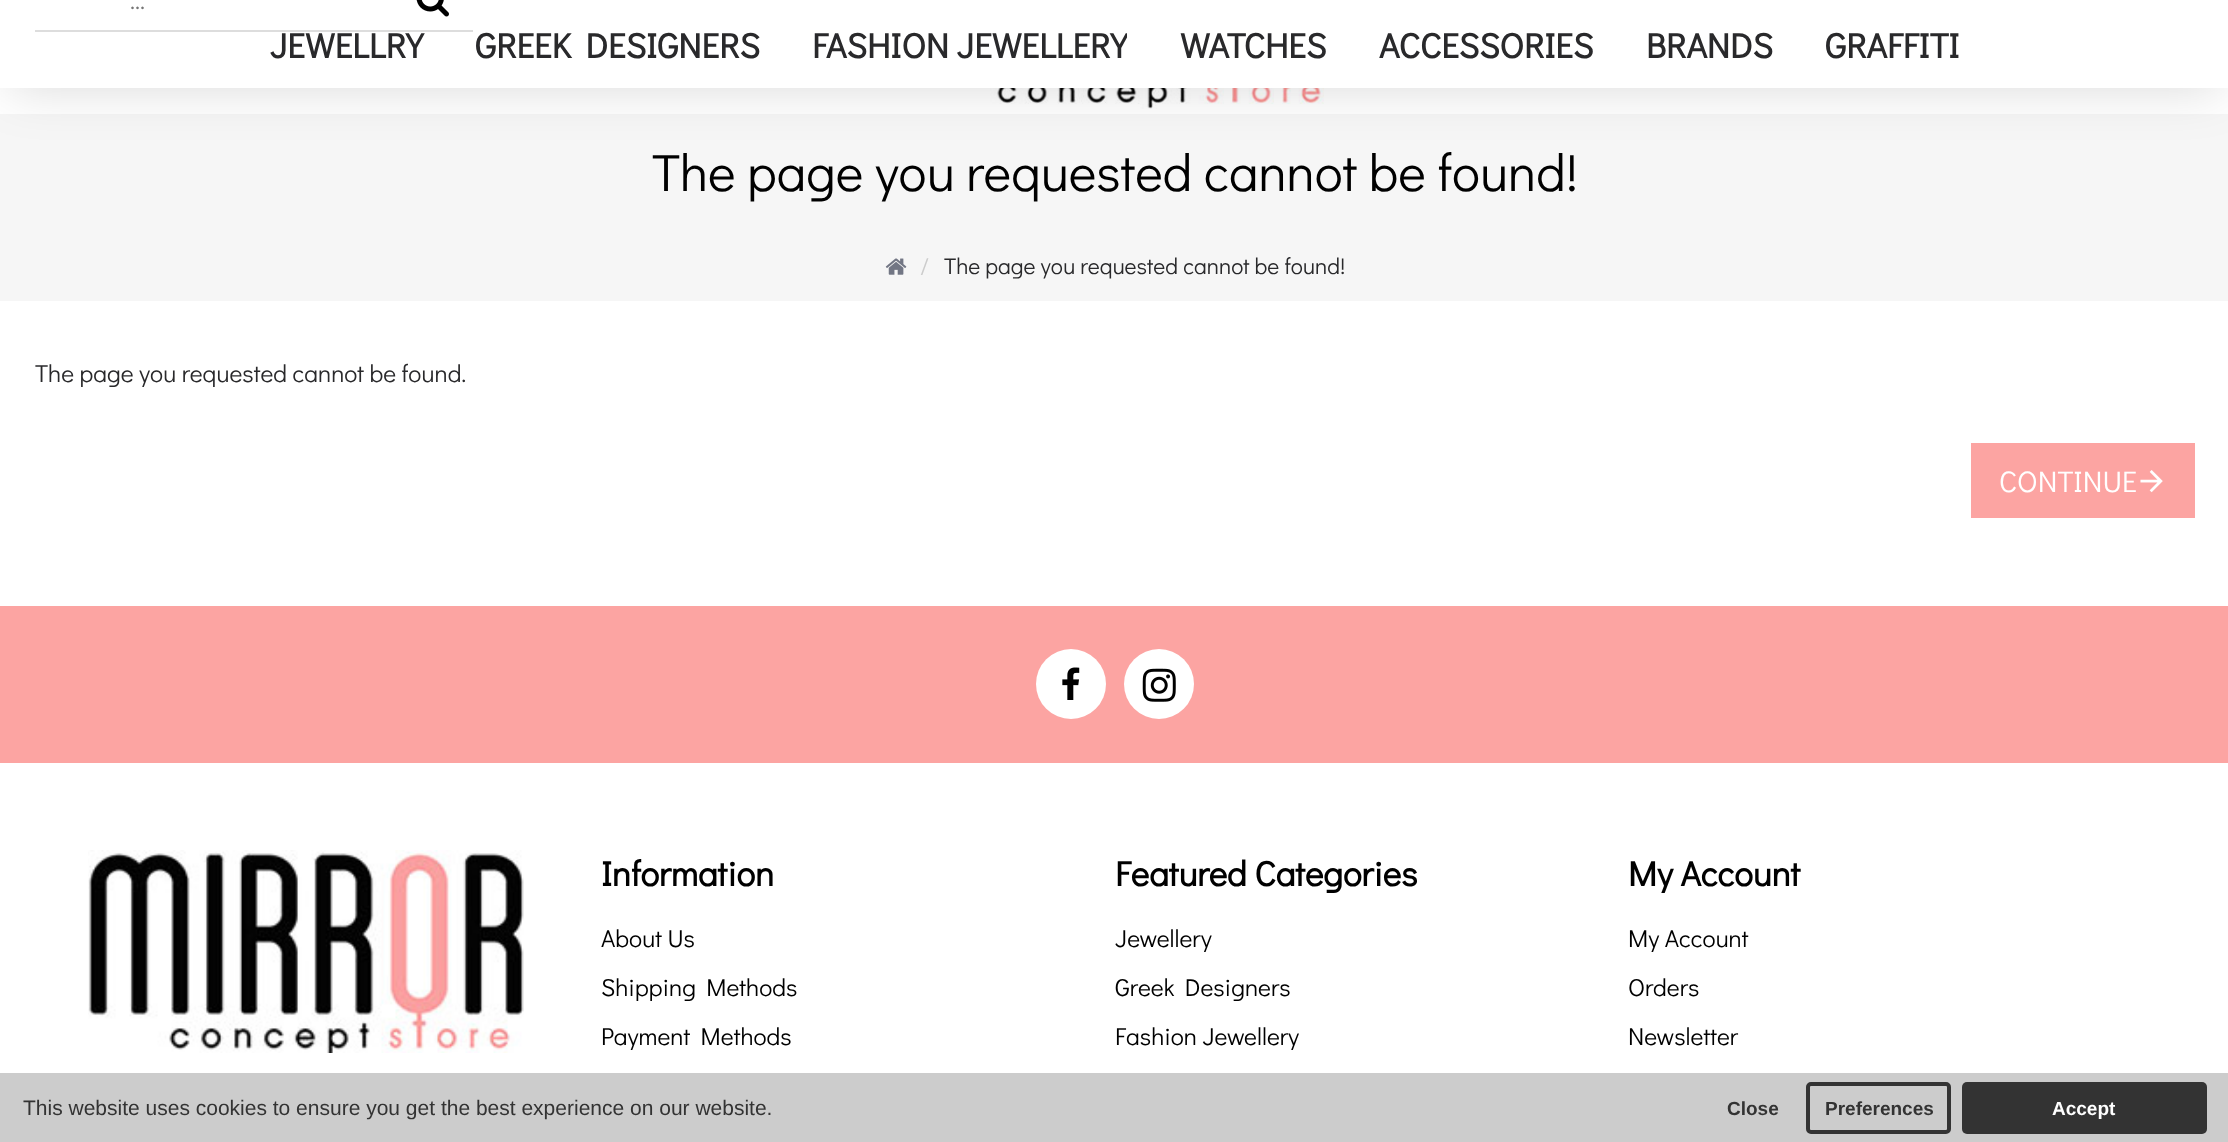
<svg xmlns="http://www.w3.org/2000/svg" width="2228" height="1142">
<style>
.a{font:24.5px Didact Gothic;fill:#757575}
.b{font:bold 35px Didact Gothic;fill:#29292b}
.c{font:52.5px Didact Gothic;fill:#000}
.d{font:24.5px Didact Gothic;fill:#ccc}
.e{font:22.75px Didact Gothic;fill:#29292b}
.f{font:24.5px Didact Gothic;fill:#29292b}
.g{font:29.75px Didact Gothic;fill:#fff}
.h{font:bold 35px Didact Gothic;fill:#000}
.i{font:24.5px Didact Gothic;fill:#000}
.j{font:21px Liberation Sans;fill:#333}
.k{font:bold 19px Liberation Sans;fill:#333}
.l{font:bold 19px Liberation Sans;fill:#fff}
</style>
<defs>
<clipPath id="clip1"><path d="M812 18h315v52H812z"/></clipPath>
</defs>
<rect width="100%" height="100%" fill="#fff"/>
<image href="2.png" x="919" y="88" width="415" height="21"/>
<path fill="#f6f6f6" d="M0 114h2228v187H0z"/>
<path fill="#00000026" filter="blur(26px)" d="M9 18h2212v70H9z"/>
<path fill="#fff" d="M0 0h2228v88H0z"/>
<path fill="#ddd" d="M35 30h438v2H35z"/>
<image href="1.png" x="416" y="0" width="33" height="17"/>
<image href="3.png" x="885" y="258" width="22" height="17"/>
<path fill="#fca4a2" d="M1971 443h224v75H1971z"/>
<image href="4.png" x="2140" y="470" width="23" height="23"/>
<path fill="#fca4a2" d="M0 606h2228v157H0z"/>
<circle fill="#fff" cx="1071" cy="684" r="35"/>
<image href="5.png" x="1062" y="667" width="18" height="33"/>
<circle fill="#fff" cx="1159" cy="684" r="35"/>
<image href="6.png" x="1142" y="668" width="34" height="34"/>
<image href="7.png" x="88" y="850" width="436" height="203"/>
<path fill="#ccc" d="M0 1073h2228v69H0z"/>
<rect fill="none" stroke="#333" stroke-width="4" x="1808" y="1084" width="141" height="48" rx="3"/>
<rect fill="#333" x="1962" y="1082" width="245" height="52" rx="5"/>
<text class="a" x="130" y="9">...</text>
<text class="b" x="270" y="58">JEWELLRY</text>
<text class="b" x="475" y="58">GREEK DESIGNERS</text>
<g clip-path="url(#clip1)">
<text class="b" x="812" y="58">FASHION JEWELLΕRY</text>
</g>
<text class="b" x="1180" y="58">WATCHES</text>
<text class="b" x="1379" y="58">ACCESSORIES</text>
<text class="b" x="1646" y="58">BRANDS</text>
<text class="b" x="1825" y="58">GRAFFITI</text>
<text class="c" x="652" y="191">The page you requested cannot be found!</text>
<text class="d" x="920" y="275">/</text>
<text class="e" x="944" y="274">The page you requested cannot be found!</text>
<text class="f" x="35" y="382">The page you requested cannot be found.</text>
<text class="g" x="1999" y="492">CONTINUE</text>
<text class="h" x="601" y="886">Information</text>
<text class="i" x="601" y="947">About Us</text>
<text class="i" x="601" y="996">Shipping Methods</text>
<text class="i" x="601" y="1045">Payment Methods</text>
<text class="h" x="1115" y="886">Featured Categories</text>
<text class="i" x="1115" y="947">Jewellery</text>
<text class="i" x="1115" y="996">Greek Designers</text>
<text class="i" x="1115" y="1045">Fashion Jewellery</text>
<text class="h" x="1628" y="886">My Account</text>
<text class="i" x="1628" y="947">My Account</text>
<text class="i" x="1628" y="996">Orders</text>
<text class="i" x="1628" y="1045">Newsletter</text>
<text class="j" x="23" y="1115">This website uses cookies to ensure you get the best experience on our website.</text>
<text class="k" x="1727" y="1115">Close</text>
<text class="k" x="1825" y="1115">Preferences</text>
<text class="l" x="2052" y="1115">Accept</text>
</svg>
